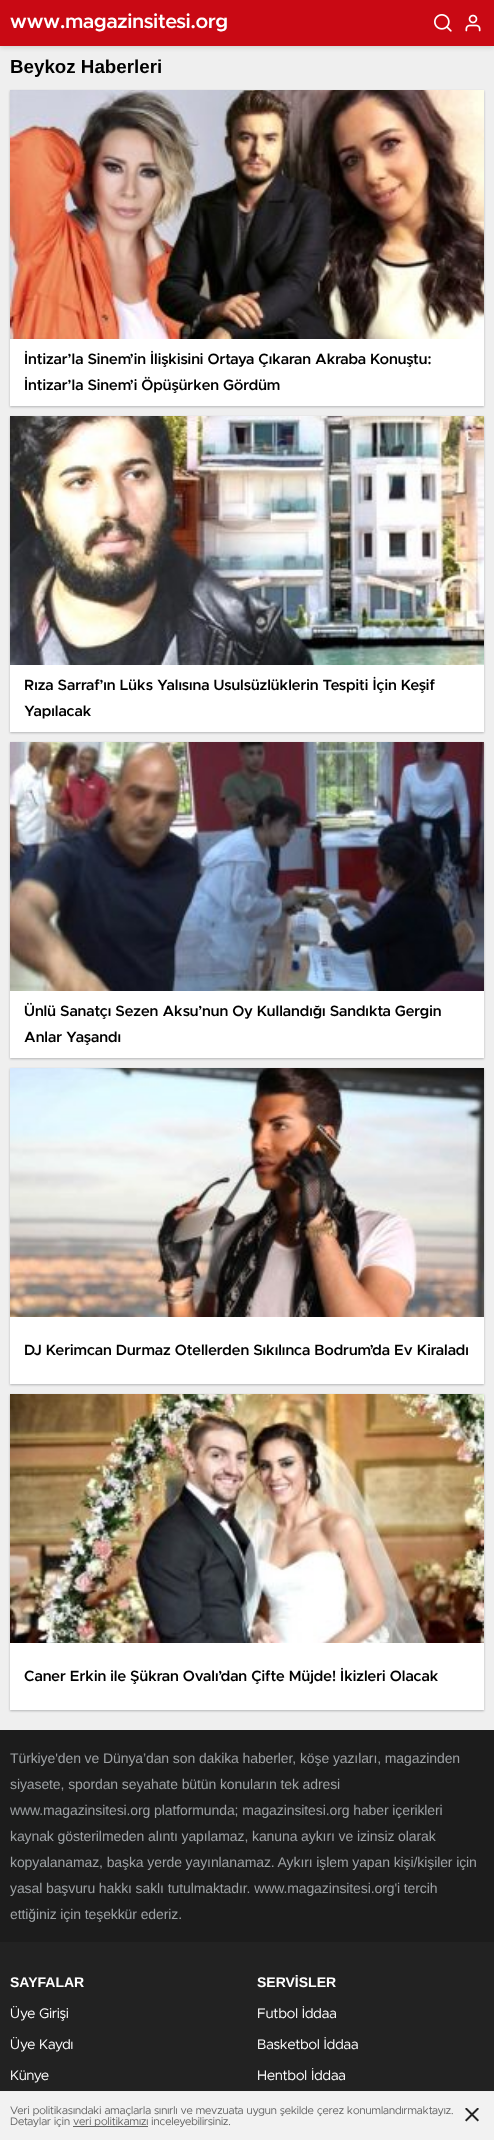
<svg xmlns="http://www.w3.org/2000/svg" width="494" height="2140">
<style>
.a{font:600 20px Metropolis;fill:#fff}
.b{font:bold 18.75px Liberation Sans;fill:#000}
.c{font:600 15px Metropolis;fill:#000}
.d{font:14px Liberation Sans;letter-spacing:-0.1px;fill:#9da1a4}
.e{font:bold 14px Liberation Sans;fill:#fff}
.f{font:14px Metropolis;fill:#fff}
.g{font:11px Metropolis;fill:#666}
</style>
<rect width="100%" height="100%" fill="#efefef"/>
<path fill="#1115191f" filter="blur(2px)" d="M0 2h494v46H0z"/>
<path fill="#c90914" d="M0 0h494v46H0z"/>
<image href="1.png" x="434" y="14" width="18" height="18"/>
<image href="2.png" x="465" y="14" width="16" height="18"/>
<path fill="#11151945" filter="blur(1px)" d="M10 91h474v316H10z"/>
<path fill="#fff" d="M10 339h474v67H10z"/>
<image href="3.png" x="10" y="90" width="474" height="249"/>
<path fill="#11151945" filter="blur(1px)" d="M10 417h474v316H10z"/>
<path fill="#fff" d="M10 665h474v67H10z"/>
<image href="4.png" x="10" y="416" width="474" height="249"/>
<path fill="#11151945" filter="blur(1px)" d="M10 743h474v316H10z"/>
<path fill="#fff" d="M10 991h474v67H10z"/>
<image href="5.png" x="10" y="742" width="474" height="249"/>
<path fill="#11151945" filter="blur(1px)" d="M10 1069h474v316H10z"/>
<path fill="#fff" d="M10 1317h474v67H10z"/>
<image href="6.png" x="10" y="1068" width="474" height="249"/>
<path fill="#11151945" filter="blur(1px)" d="M10 1395h474v316H10z"/>
<path fill="#fff" d="M10 1643h474v67H10z"/>
<image href="7.png" x="10" y="1394" width="474" height="249"/>
<path fill="#222" d="M0 1942h494v149H0z"/>
<path fill="#f2f2f2" d="M0 2092h494v48H0z"/>
<path fill="#1c1c1c" d="M0 1730h494v212H0z"/>
<path fill="#666" d="M73 2126h75v1H73z"/>
<image href="8.png" x="465" y="2108" width="14" height="14"/>
<text class="a" x="10" y="28">www.magazinsitesi.org</text>
<text class="b" x="10" y="73">Beykoz Haberleri</text>
<text class="c" x="24" y="364">İntizar’la Sinem’in İlişkisini Ortaya Çıkaran Akraba Konuştu:</text>
<text class="c" x="24" y="390">İntizar’la Sinem’i Öpüşürken Gördüm</text>
<text class="c" x="24" y="690">Rıza Sarraf’ın Lüks Yalısına Usulsüzlüklerin Tespiti İçin Keşif</text>
<text class="c" x="24" y="716">Yapılacak</text>
<text class="c" x="24" y="1016">Ünlü Sanatçı Sezen Aksu’nun Oy Kullandığı Sandıkta Gergin</text>
<text class="c" x="24" y="1042">Anlar Yaşandı</text>
<text class="c" x="24" y="1355">DJ Kerimcan Durmaz Otellerden Sıkılınca Bodrum’da Ev Kiraladı</text>
<text class="c" x="24" y="1681">Caner Erkin ile Şükran Ovalı’dan Çifte Müjde! İkizleri Olacak</text>
<text class="d" x="10" y="1763">Türkiye'den ve Dünya’dan son dakika haberler, köşe yazıları, magazinden</text>
<text class="d" x="10" y="1789">siyasete, spordan seyahate bütün konuların tek adresi</text>
<text class="d" x="10" y="1815">www.magazinsitesi.org platformunda; magazinsitesi.org haber içerikleri</text>
<text class="d" x="10" y="1841">kaynak gösterilmeden alıntı yapılamaz, kanuna aykırı ve izinsiz olarak</text>
<text class="d" x="10" y="1867">kopyalanamaz, başka yerde yayınlanamaz. Aykırı işlem yapan kişi/kişiler için</text>
<text class="d" x="10" y="1893">yasal başvuru hakkı saklı tutulmaktadır. www.magazinsitesi.org'i tercih</text>
<text class="d" x="10" y="1919">ettiğiniz için teşekkür ederiz.</text>
<text class="e" x="10" y="1987">SAYFALAR</text>
<text class="f" x="10" y="2018">Üye Girişi</text>
<text class="f" x="10" y="2049">Üye Kaydı</text>
<text class="f" x="10" y="2080">Künye</text>
<text class="e" x="257" y="1987">SERVİSLER</text>
<text class="f" x="257" y="2018">Futbol İddaa</text>
<text class="f" x="257" y="2049">Basketbol İddaa</text>
<text class="f" x="257" y="2080">Hentbol İddaa</text>
<text class="g" x="10" y="2114">Veri politikasındaki amaçlarla sınırlı ve mevzuata uygun şekilde çerez konumlandırmaktayız.</text>
<text class="g" x="10" y="2125">Detaylar için</text>
<text class="g" x="73" y="2125">veri politikamızı inceleyebilirsiniz.</text>
</svg>
